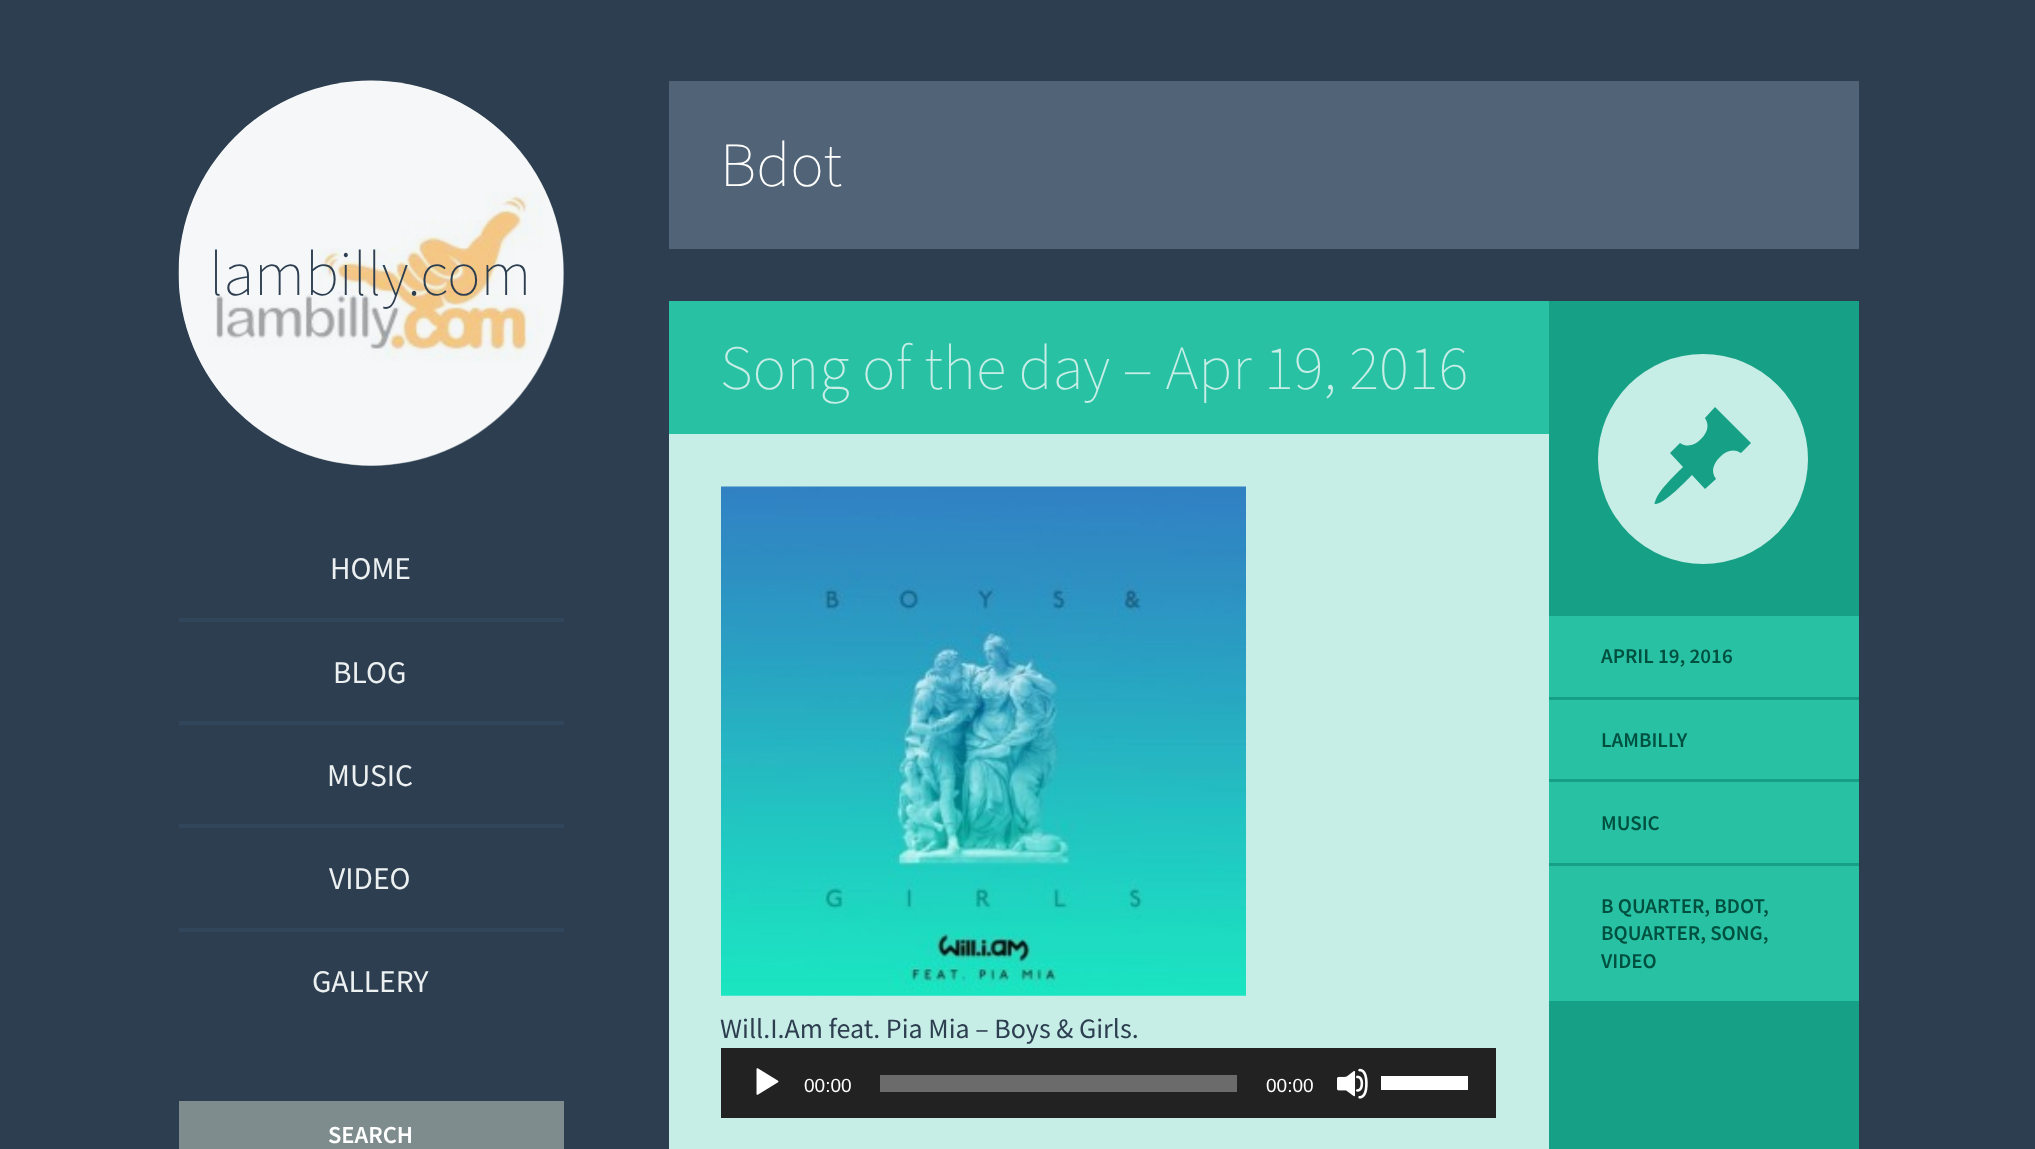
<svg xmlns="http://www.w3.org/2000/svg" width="2035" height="1149">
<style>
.a{font:200 63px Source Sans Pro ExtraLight;fill:#2c3e50}
.b{font:31.5px Source Sans Pro;fill:#ecf0f1}
.c{font:200 63px Source Sans Pro ExtraLight;fill:#fff}
.d{font:200 63px Source Sans Pro ExtraLight;fill:#c7eee6}
.e{font:28px Source Sans Pro;fill:#2c3e50}
.f{font:19px Liberation Sans;fill:#fff}
.g{font:600 21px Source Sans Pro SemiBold;fill:#005040}
.h{font:600 24.5px Source Sans Pro SemiBold;fill:#fff}
</style>
<rect width="100%" height="100%" fill="#2c3e50"/>
<image href="1.png" x="178" y="80" width="386" height="386"/>
<circle fill="#ecf0f180" cx="371.5" cy="273.5" r="192.5"/>
<path fill="#31465a" d="M179 618h385v4H179z"/>
<path fill="#31465a" d="M179 721h385v4H179z"/>
<path fill="#31465a" d="M179 824h385v4H179z"/>
<path fill="#31465a" d="M179 928h385v4H179z"/>
<path fill="#516477" d="M669 81h1190v168H669z"/>
<path fill="#c7eee6" d="M669 434h880v715H669z"/>
<path fill="#28c1a3" d="M669 301h880v133H669z"/>
<image href="2.png" x="721" y="486" width="525" height="510"/>
<path fill="#222" d="M721 1048h775v70H721z"/>
<image href="3.png" x="756" y="1068" width="23" height="27"/>
<path fill="#6b6b6b" d="M880 1075h357v17H880z"/>
<image href="4.png" x="1337" y="1068" width="31" height="31"/>
<path fill="#fff" d="M1381 1076h87v14H1381z"/>
<path fill="#16a085" d="M1549 301h310v848H1549z"/>
<circle fill="#c7eee6" cx="1703" cy="459" r="105"/>
<path fill="#16a085" d="M1705 418l10-11l36 36l-10 10c-8-5-15-2-21 4c-6 6-10 14-4 22l-11 10l-13-14c-6 6-27 28-36 29c-2 0-2-1-1-2c3-11 18-25 26-33l2-2l-13-14l10-10c8 5 15 2 21-4c6-6 9-13 4-21z"/>
<path fill="#28c1a3" d="M1549 616h310v81H1549z"/>
<path fill="#28c1a3" d="M1549 700h310v79H1549z"/>
<path fill="#28c1a3" d="M1549 782h310v81H1549z"/>
<path fill="#28c1a3" d="M1549 866h310v135H1549z"/>
<path fill="#7f8c8d" d="M179 1101h385v48H179z"/>
<text class="a" x="209" y="295">lambilly.com</text>
<text class="b" x="330" y="579">HOME</text>
<text class="b" x="333" y="683">BLOG</text>
<text class="b" x="327" y="786">MUSIC</text>
<text class="b" x="329" y="889">VIDEO</text>
<text class="b" x="312" y="992">GALLERY</text>
<text class="c" x="720" y="186">Bdot</text>
<text class="d" x="720" y="389">Song of the day – Apr 19, 2016</text>
<text class="e" x="720" y="1038">Will.I.Am feat. Pia Mia – Boys &amp; Girls.</text>
<text class="f" x="804" y="1092">00:00</text>
<text class="f" x="1266" y="1092">00:00</text>
<text class="g" x="1601" y="663">APRIL 19, 2016</text>
<text class="g" x="1601" y="747">LAMBILLY</text>
<text class="g" x="1601" y="830">MUSIC</text>
<text class="g" x="1601" y="913">B QUARTER, BDOT</text>
<text class="g" x="1763" y="913">,</text>
<text class="g" x="1601" y="940">BQUARTER, SONG,</text>
<text class="g" x="1601" y="968">VIDEO</text>
<text class="h" x="328" y="1143">SEARCH</text>
</svg>
